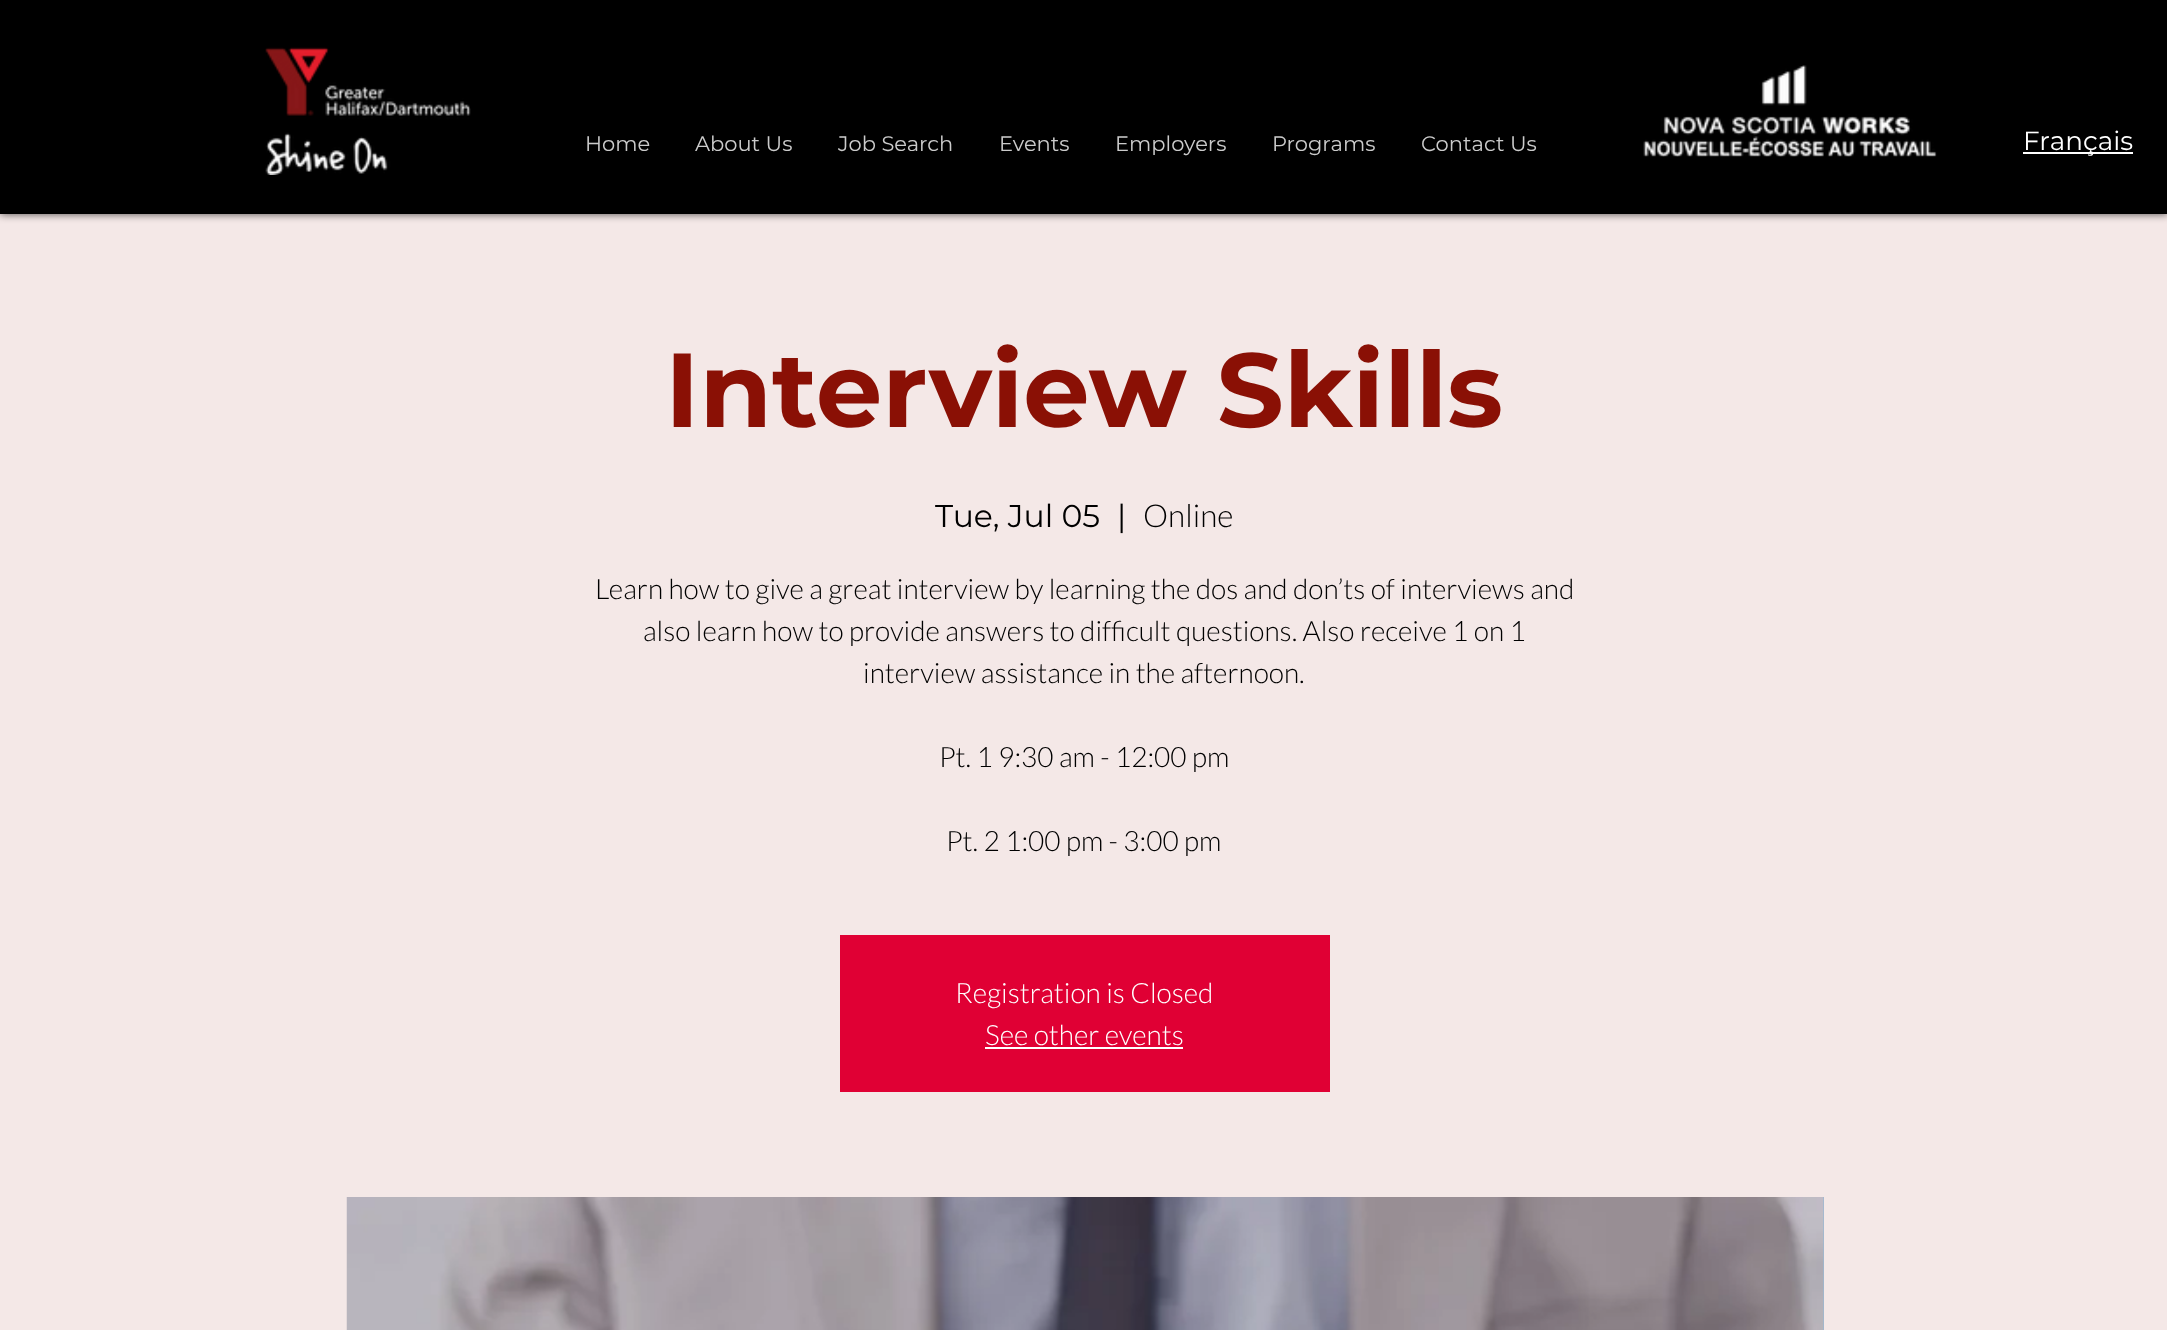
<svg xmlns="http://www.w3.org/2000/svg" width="2167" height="1330">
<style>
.a{font:21px Montserrat;fill:#cbcbcb}
.b{font:26.25px Montserrat;fill:#fff}
.c{font:bold 105px Montserrat;fill:#8a1005}
.d{font:31.5px Montserrat;fill:#000}
.e{font:300 31.5px Lato;fill:#000}
.f{font:300 28px Lato;fill:#000}
.g{font:300 28px Lato;fill:#fff}
</style>
<rect width="100%" height="100%" fill="#f4e8e7"/>
<path fill="#000000b3" filter="blur(4.5px)" d="M0 0h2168v214H0z"/>
<path fill="#000" d="M0 0h2167v214H0z"/>
<image href="1.png" x="265" y="47" width="206" height="128"/>
<image href="2.png" x="1643" y="65" width="294" height="92"/>
<path fill="#fff" d="M2023 152h110v2H2023z"/>
<path fill="#e00034" d="M840 935h490v157H840z"/>
<path fill="#fff" d="M985 1047h198v2H985z"/>
<path fill="#9db9d2" d="M1823 1197h1v133H1823z"/>
<image href="3.png" x="346" y="1197" width="1478" height="133"/>
<text class="a" x="585" y="151">Home</text>
<text class="a" x="695" y="151">About Us</text>
<text class="a" x="838" y="151">Job Search</text>
<text class="a" x="999" y="151">Events</text>
<text class="a" x="1115" y="151">Employers</text>
<text class="a" x="1272" y="151">Programs</text>
<text class="a" x="1421" y="151">Contact Us</text>
<text class="b" x="2023" y="150">Français</text>
<text class="c" x="665" y="427">Interview Skills</text>
<text class="d" x="935" y="527">Tue, Jul 05</text>
<text class="d" x="1117" y="527">|</text>
<text class="e" x="1143" y="527">Online</text>
<text class="f" x="595" y="599">Learn how to give a great interview by learning the dos and don’ts of interviews and</text>
<text class="f" x="643" y="641">also learn how to provide answers to difficult questions. Also receive 1 on 1</text>
<text class="f" x="863" y="683">interview assistance in the afternoon.</text>
<text class="f" x="939" y="767">Pt. 1 9:30 am - 12:00 pm</text>
<text class="f" x="946" y="851">Pt. 2 1:00 pm - 3:00 pm</text>
<text class="g" x="955" y="1003">Registration is Closed</text>
<text class="g" x="985" y="1045">See other events</text>
</svg>
